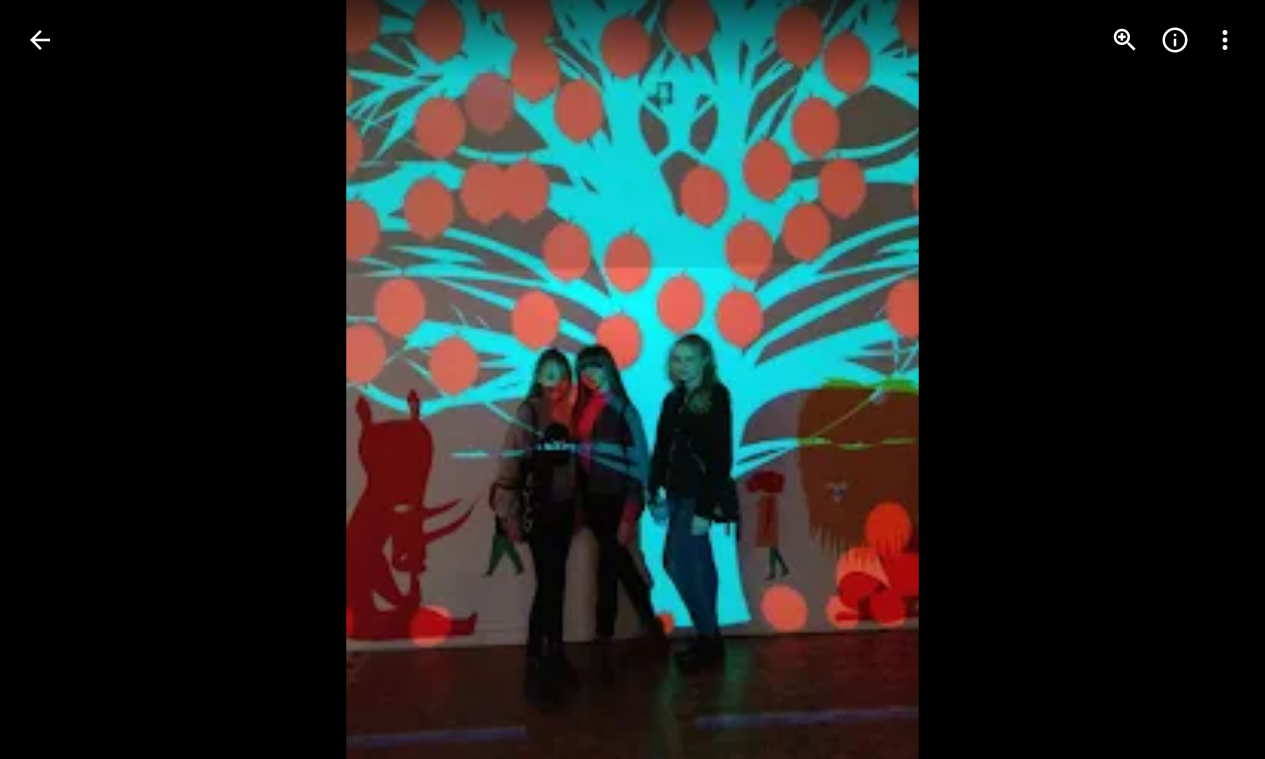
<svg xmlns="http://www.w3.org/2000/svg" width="1265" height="759">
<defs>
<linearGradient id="g1" gradientUnits="userSpaceOnUse" x1="633" y1="0" x2="633" y2="80"><stop offset="0" stop-color="#000" stop-opacity="0.6"/><stop offset="1" stop-color="#000" stop-opacity="0"/></linearGradient>
</defs>
<rect width="100%" height="100%" fill="#000"/>
<image href="5.png" x="346" y="0" width="573" height="759"/>
<path fill="url(#g1)" d="M346 0h573v77H346z"/>
<image href="1.png" x="30" y="30" width="20" height="20"/>
<image href="2.png" x="1113" y="28" width="23" height="23"/>
<image href="3.png" x="1162" y="27" width="26" height="26"/>
<image href="4.png" x="1222" y="30" width="6" height="20"/>
</svg>
